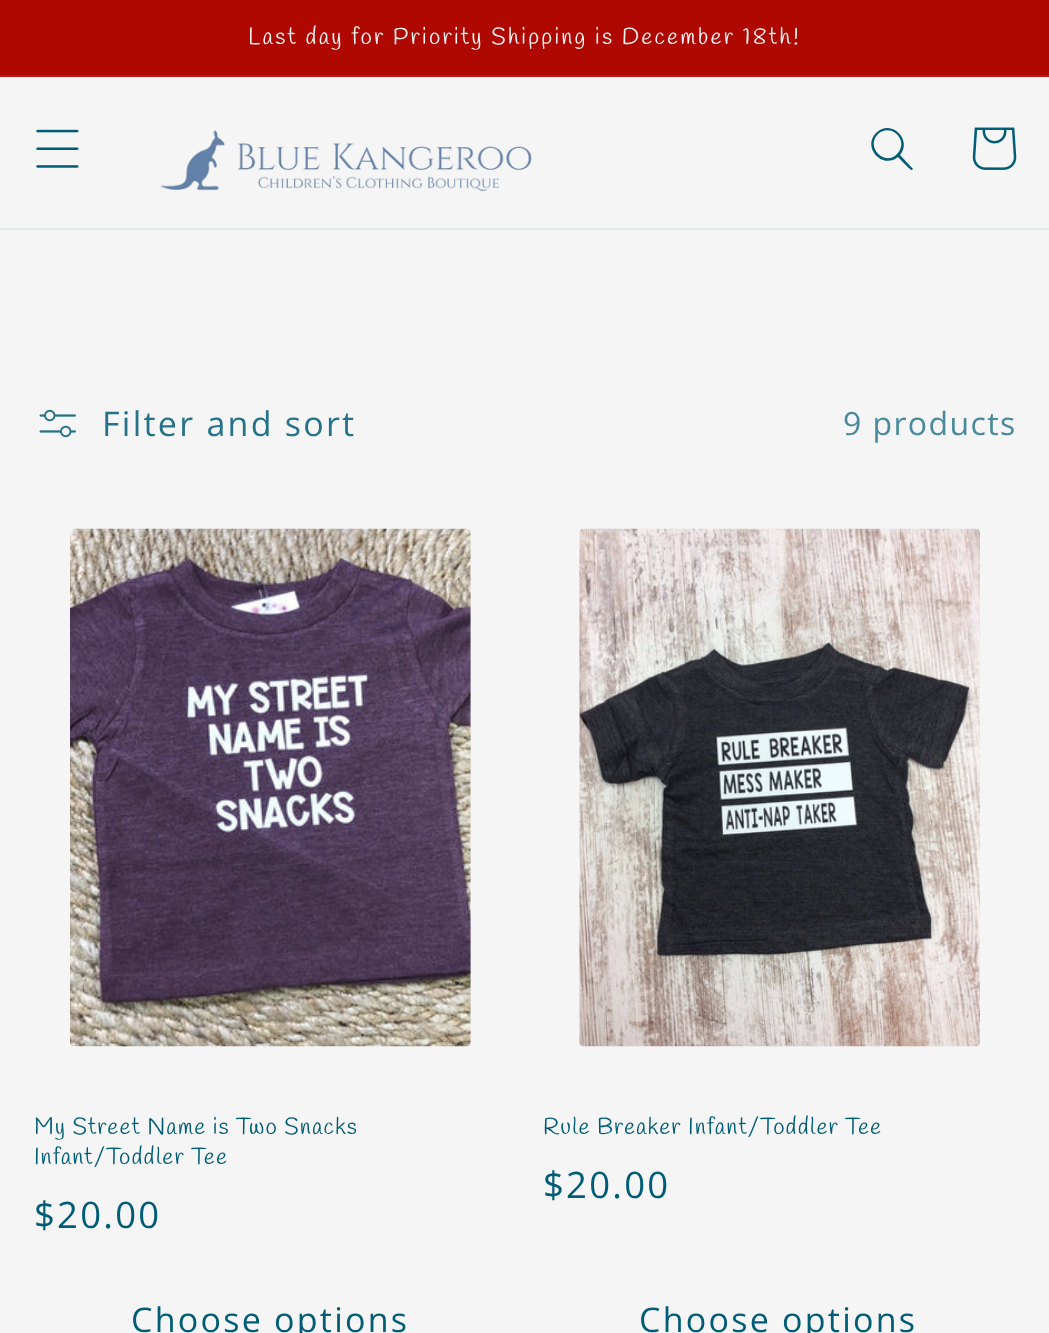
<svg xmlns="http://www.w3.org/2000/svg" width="1049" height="1333">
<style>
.a{font:23.1px Handlee;letter-spacing:2.25px;fill:#f5f5f5}
.b{font:34px Open Sans;letter-spacing:2.25px;fill:#267389}
.c{font:32px Open Sans;letter-spacing:1.4px;fill:#4a8a9c}
.d{font:23.1px Handlee;letter-spacing:1.15px;fill:#015c76}
.e{font:36.5px Open Sans;letter-spacing:2.25px;fill:#015c76}
.f{font:34px Open Sans;letter-spacing:2.25px;fill:#015c76}
</style>
<rect width="100%" height="100%" fill="#f5f5f5"/>
<path fill="#ae0800" d="M0 0h1049v75H0z"/>
<path fill="#b41b14" d="M0 75h1049v2H0z"/>
<path fill="#e1e9eb" d="M0 228h1049v2H0z"/>
<image href="1.png" x="36" y="129" width="43" height="39"/>
<image href="2.png" x="160" y="130" width="372" height="62"/>
<path fill="#015c76" fill-rule="evenodd" d="M897 154c-12 13-32-7-19-20c13-12 32 7 19 20zm1 3c-16 13-36-10-22-24c15-15 37 7 24 22l13 14l-1 1c-1 1-12-11-14-13z"/>
<image href="3.png" x="972" y="127" width="45" height="43"/>
<image href="4.png" x="39" y="409" width="37" height="29"/>
<image href="5.png" x="70" y="528" width="401" height="519"/>
<image href="6.png" x="579" y="528" width="401" height="519"/>
<text class="a" x="248" y="44">Last day for Priority Shipping is December 18th!</text>
<text class="b" x="102" y="436">Filter and sort</text>
<text class="c" x="843" y="435">9 products</text>
<text class="d" x="34" y="1134">My Street Name is Two Snacks</text>
<text class="d" x="34" y="1164">Infant/Toddler Tee</text>
<text class="e" x="34" y="1228">$20.00</text>
<text class="f" x="131" y="1332">Choose options</text>
<text class="d" x="543" y="1134">Rule Breaker Infant/Toddler Tee</text>
<text class="e" x="543" y="1198">$20.00</text>
<text class="f" x="639" y="1332">Choose options</text>
</svg>
